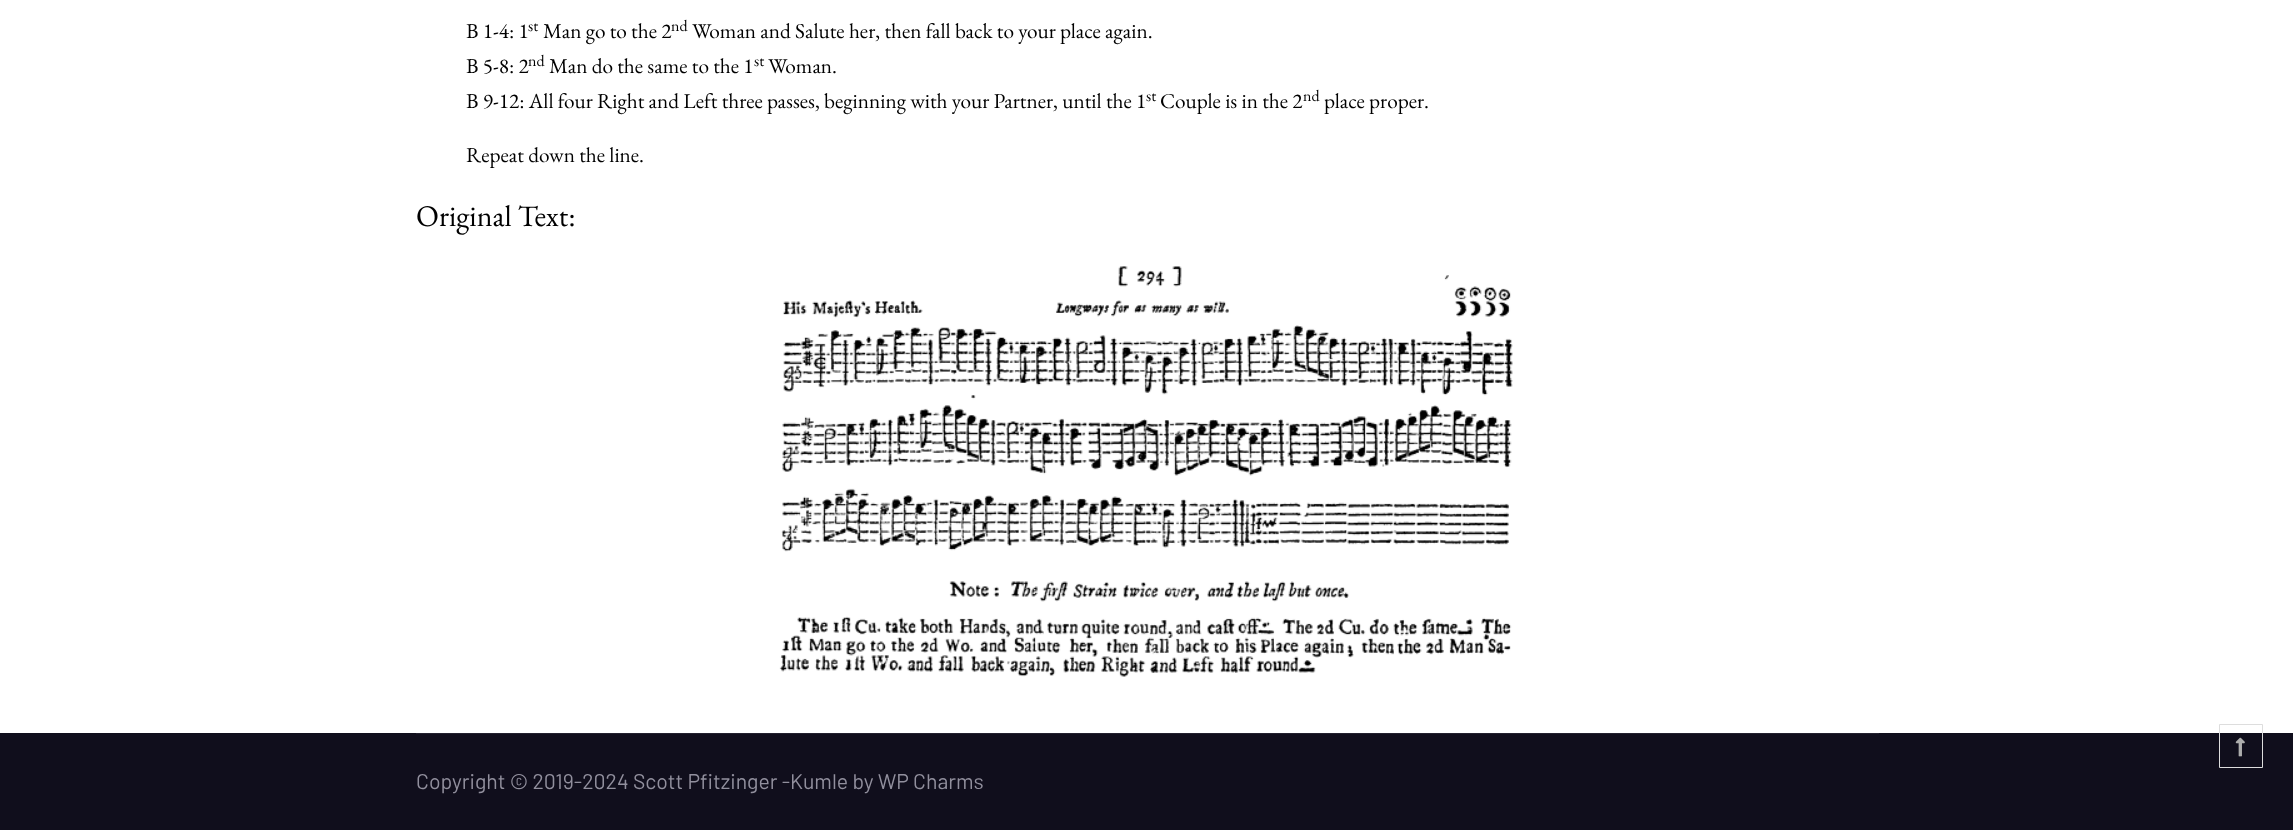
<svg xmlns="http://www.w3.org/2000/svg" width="2293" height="830">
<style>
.a{font:21.25px EB Garamond;fill:#000}
.b{font:16px EB Garamond;fill:#000}
.c{font:30px EB Garamond;fill:#000}
.d{font:21.25px Barlow;fill:#918f9d}
</style>
<rect width="100%" height="100%" fill="#fff"/>
<image href="1.png" x="779" y="266" width="734" height="411"/>
<path fill="#100e1c" d="M0 733h2293v97H0z"/>
<path fill="#23212f" d="M416 733h1463v1H416z"/>
<path fill="none" stroke="#ddd" d="M2219.5 724.5h43v43H2219.5z"/>
<image href="2.png" x="2235" y="737" width="10" height="20"/>
<text class="a" x="466" y="38">B 1-4: 1</text>
<text class="b" x="528" y="31">st</text>
<text class="a" x="543" y="38">Man go to the 2</text>
<text class="b" x="671" y="31">nd</text>
<text class="a" x="692" y="38">Woman and Salute her, then fall back to your place again.</text>
<text class="a" x="466" y="73">B 5-8: 2</text>
<text class="b" x="528" y="66">nd</text>
<text class="a" x="549" y="73">Man do the same to the 1</text>
<text class="b" x="754" y="66">st</text>
<text class="a" x="768" y="73">Woman.</text>
<text class="a" x="466" y="108">B 9-12: All four Right and Left three passes, beginning with your Partner, until the 1</text>
<text class="b" x="1146" y="101">st</text>
<text class="a" x="1160" y="108">Couple is in the 2</text>
<text class="b" x="1303" y="101">nd</text>
<text class="a" x="1324" y="108">place proper.</text>
<text class="a" x="466" y="162">Repeat down the line.</text>
<text class="c" x="416" y="226">Original Text:</text>
<text class="d" x="416" y="789">Copyright © 2019-2024 Scott Pfitzinger -</text>
<text class="d" x="790" y="789">Kumle by WP Charms</text>
</svg>
